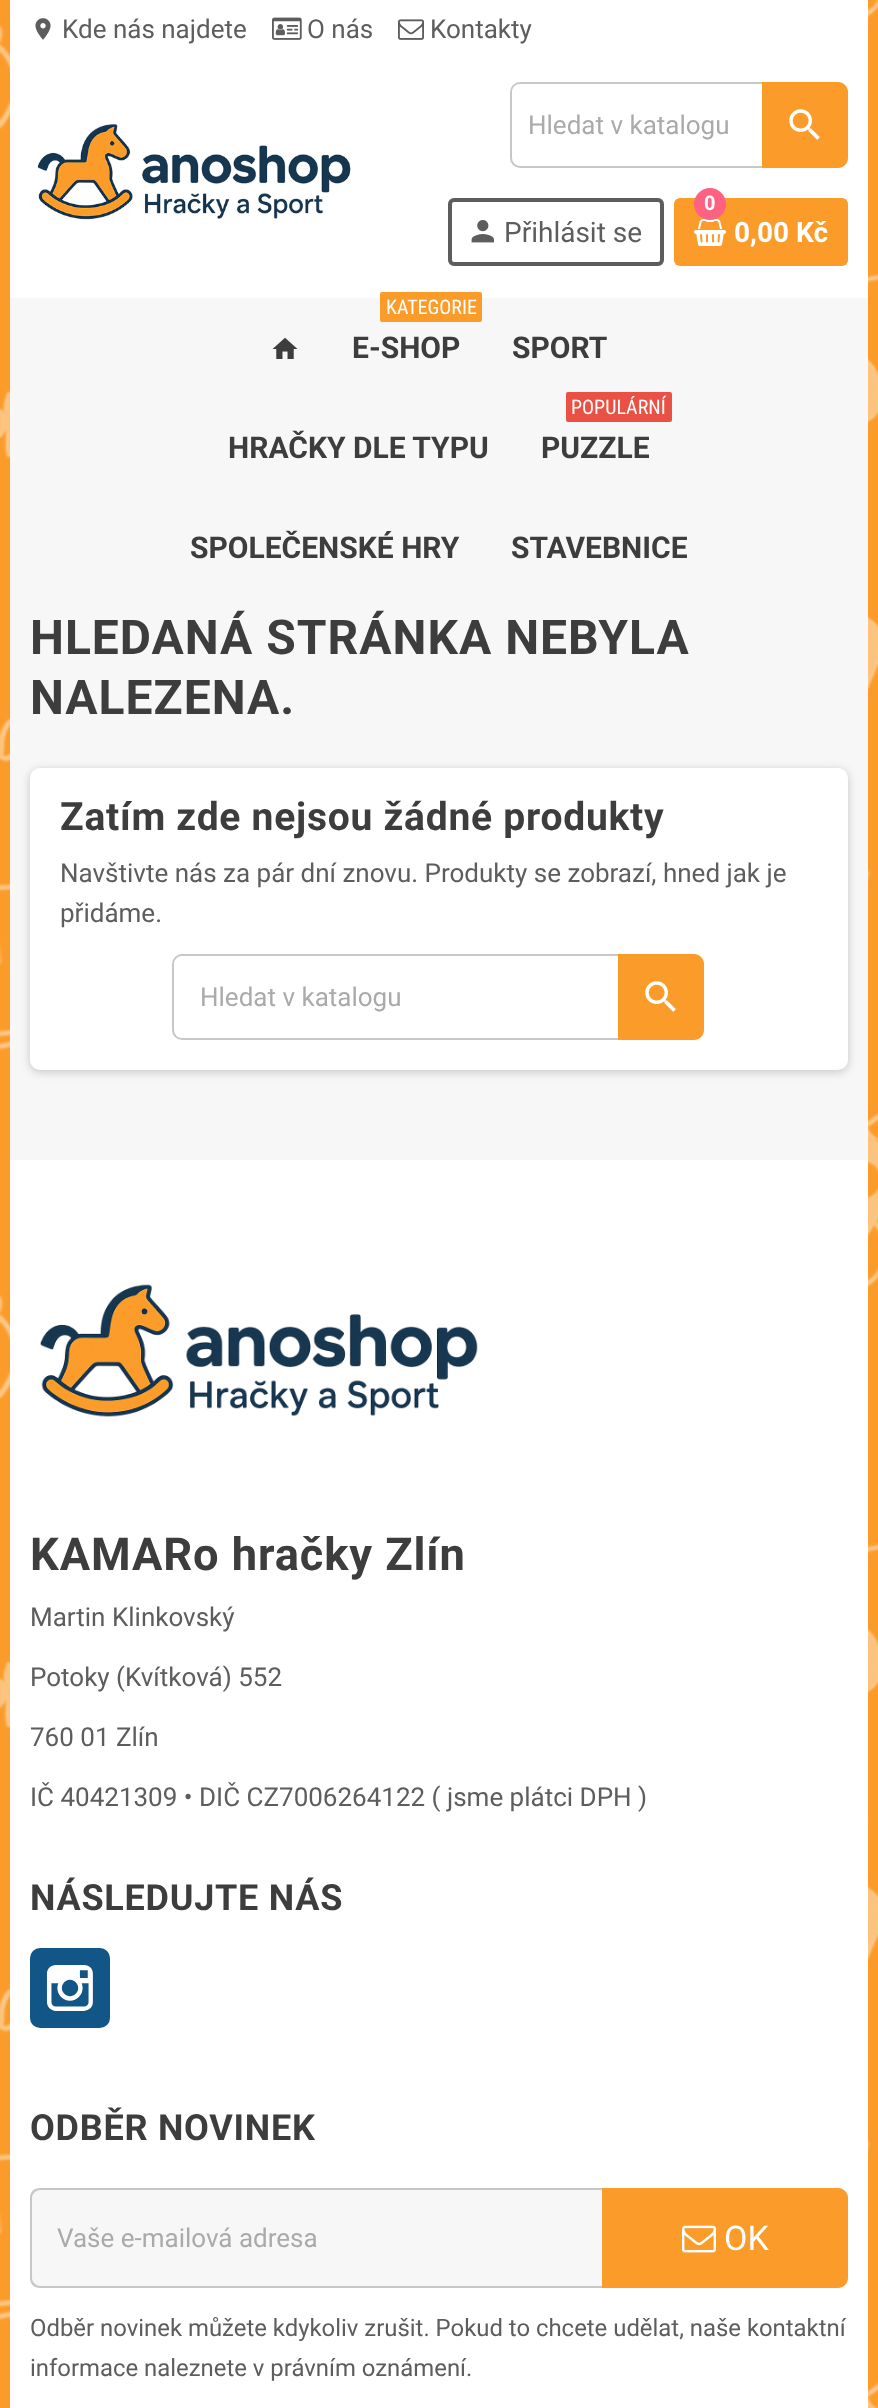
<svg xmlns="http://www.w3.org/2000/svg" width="878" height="2408">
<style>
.a{font:26px Roboto;fill:#5d5d5d}
.b{font:26px Roboto;fill:#aaa}
.c{font:28px Roboto;fill:#5d5d5d}
.d{font:bold 20px 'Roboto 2';fill:#fff}
.e{font:bold 28px 'Roboto 2';fill:#fff}
.f{font:20px Roboto Condensed;fill:#fff}
.g{font:bold 30px Roboto;fill:#3d3d3d}
.h{font:bold 48px Roboto;letter-spacing:1px;fill:#3d3d3d}
.i{font:bold 39px Roboto;letter-spacing:0.75px;fill:#3d3d3d}
.j{font:bold 45.25px Roboto;letter-spacing:0.9px;fill:#3d3d3d}
.k{font:bold 36px Roboto;letter-spacing:0.75px;fill:#3d3d3d}
.l{font:34px Roboto;fill:#fff}
.m{font:23.9px Roboto;fill:#5d5d5d}
</style>
<rect width="100%" height="100%" fill="#fb9c2a"/>
<image href="1.png" x="0" y="0" width="878" height="2408"/>
<path fill="#fff" d="M10 0h858v298H10z"/>
<image href="2.png" x="35" y="18" width="16" height="22"/>
<image href="3.png" x="272" y="17" width="30" height="23"/>
<image href="4.png" x="398" y="19" width="26" height="21"/>
<image href="5.png" x="37" y="124" width="314" height="96"/>
<rect fill="none" stroke="#c7c7c7" stroke-width="2" x="511" y="83" width="334" height="84" rx="9"/>
<path fill="#fb9c2a" d="M762 82h76c5.5 0 10 4.5 10 10v66c0 5.5-4.5 10-10 10h-76z"/>
<image href="6.png" x="789" y="109" width="31" height="31"/>
<rect fill="none" stroke="#5d5d5d" stroke-width="4" x="450" y="200" width="212" height="64" rx="4"/>
<image href="7.png" x="471" y="220" width="23" height="23"/>
<rect fill="#fb9c2a" x="674" y="198" width="174" height="68" rx="6"/>
<image href="8.png" x="694" y="219" width="32" height="27"/>
<circle fill="#fd6282" cx="710" cy="204" r="16"/>
<path fill="#f7f7f7" d="M10 298h858v862H10z"/>
<image href="9.png" x="272" y="337" width="26" height="22"/>
<rect fill="#fb9c2a" x="380" y="292" width="102" height="30" rx="2"/>
<rect fill="#e95144" x="566" y="392" width="106" height="30" rx="2"/>
<rect fill="#00000033" filter="blur(5px)" x="30" y="770" width="818" height="302" rx="10"/>
<rect fill="#fff" x="30" y="768" width="818" height="302" rx="10"/>
<rect fill="none" stroke="#c7c7c7" stroke-width="2" x="173" y="955" width="528" height="84" rx="9"/>
<path fill="#fb9c2a" d="M618 954h76c5.5 0 10 4.5 10 10v66c0 5.5-4.5 10-10 10h-76z"/>
<image href="6.png" x="645" y="981" width="31" height="31"/>
<path fill="#fff" d="M10 1160h858v1248H10z"/>
<image href="10.png" x="40" y="1284" width="438" height="133"/>
<rect fill="#125688" x="30" y="1948" width="80" height="80" rx="10"/>
<image href="11.png" x="46" y="1965" width="47" height="46"/>
<path fill="#f7f7f7" d="M40 2190h562v96h-562c-4.5 0-8-3.5-8-8v-80c0-4.5 3.5-8 8-8z"/>
<path fill="#c7c7c7" fill-rule="evenodd" d="M40 2188h562v100h-562c-6 0-10-4-10-10v-80c0-6 4-10 10-10zm0 2h562v96h-562c-4 0-8-4-8-8v-80c0-4 4-8 8-8z"/>
<path fill="#fb9c2a" d="M602 2188h236c5.5 0 10 4.5 10 10v80c0 5.5-4.5 10-10 10h-236z"/>
<image href="12.png" x="682" y="2225" width="34" height="28"/>
<text class="a" x="62" y="38">Kde nás najdete</text>
<text class="a" x="307" y="38">O nás</text>
<text class="a" x="430" y="38">Kontakty</text>
<text class="b" x="528" y="134">Hledat v katalogu</text>
<text class="c" x="504" y="242">Přihlásit se</text>
<text class="d" x="704" y="210">0</text>
<text class="e" x="734" y="242">0,00 Kč</text>
<text class="f" x="386" y="314">KATEGORIE</text>
<text class="g" x="352" y="358">E-SHOP</text>
<text class="g" x="512" y="358">SPORT</text>
<text class="g" x="228" y="458">HRAČKY DLE TYPU</text>
<text class="f" x="571" y="414">POPULÁRNÍ</text>
<text class="g" x="541" y="458">PUZZLE</text>
<text class="g" x="190" y="558">SPOLEČENSKÉ HRY</text>
<text class="g" x="511" y="558">STAVEBNICE</text>
<text class="h" x="30" y="654">HLEDANÁ STRÁNKA NEBYLA</text>
<text class="h" x="30" y="714">NALEZENA.</text>
<text class="i" x="60" y="830">Zatím zde nejsou žádné produkty</text>
<text class="a" x="60" y="882">Navštivte nás za pár dní znovu. Produkty se zobrazí, hned jak je</text>
<text class="a" x="60" y="922">přidáme.</text>
<text class="b" x="200" y="1006">Hledat v katalogu</text>
<text class="j" x="30" y="1570">KAMARo hračky Zlín</text>
<text class="a" x="30" y="1626">Martin Klinkovský</text>
<text class="a" x="30" y="1686">Potoky (Kvítková) 552</text>
<text class="a" x="30" y="1746">760 01 Zlín</text>
<text class="a" x="30" y="1806">IČ 40421309 • DIČ CZ7006264122 ( jsme plátci DPH )</text>
<text class="k" x="30" y="1910">NÁSLEDUJTE NÁS</text>
<text class="k" x="30" y="2140">ODBĚR NOVINEK</text>
<text class="b" x="57" y="2247">Vaše e-mailová adresa</text>
<text class="l" x="724" y="2250">OK</text>
<text class="m" x="30" y="2336">Odběr novinek můžete kdykoliv zrušit. Pokud to chcete udělat, naše kontaktní</text>
<text class="m" x="30" y="2376">informace naleznete v právním oznámení.</text>
</svg>
